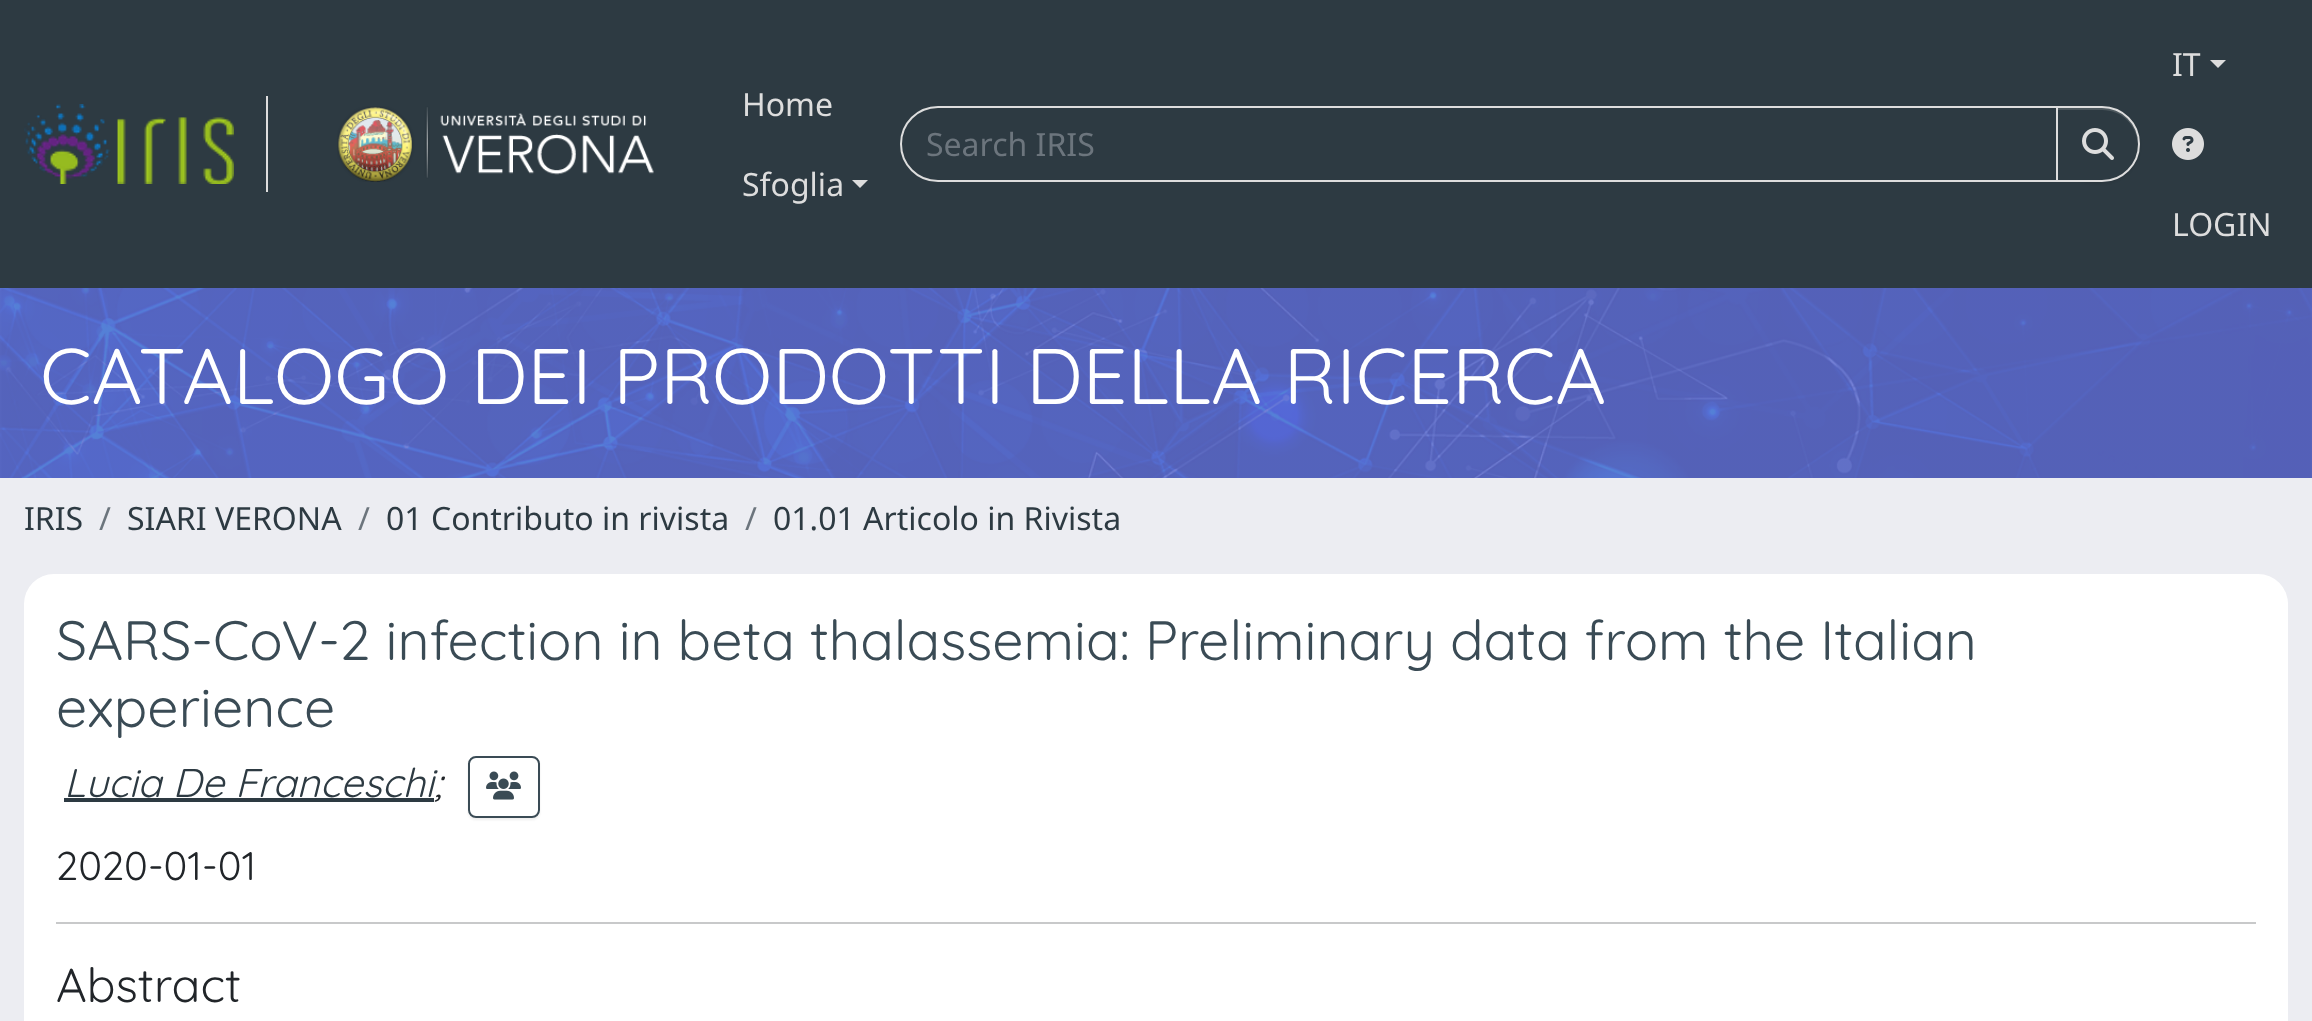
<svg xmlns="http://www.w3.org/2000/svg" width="2312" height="1021">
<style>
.a{font:32px Noto Sans;fill:#ddd}
.b{font:32px Noto Sans;fill:#6c757d}
.c{font:300 78.7px Quicksand;fill:#fff}
.d{font:32px Noto Sans;fill:#2d3a42}
.e{font:300 55.45px Quicksand;fill:#3a4b55}
.f{font:italic 300 40px Quicksand;fill:#2d3a42}
.g{font:italic 300 40px Quicksand;fill:#212529}
.h{font:300 40px Quicksand;fill:#212529}
.i{font:300 47.5px Quicksand;fill:#212529}
</style>
<defs>
<clipPath id="clip1"><path d="M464 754h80v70h-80zm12 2h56c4.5 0 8 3.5 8 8v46c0 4.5-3.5 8-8 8h-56c-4.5 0-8-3.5-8-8v-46c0-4.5 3.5-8 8-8z" clip-rule="evenodd"/></clipPath>
</defs>
<rect width="100%" height="100%" fill="#ecedf2"/>
<path fill="#2d3a42" d="M0 0h2312v288H0z"/>
<path fill="#ddd" d="M266 96h2v96H266z"/>
<image href="1.png" x="24" y="104" width="210" height="80"/>
<image href="2.png" x="337" y="106" width="317" height="76"/>
<path fill="#ddd" d="M852 180h16l-8 8z"/>
<path fill="none" stroke="#ddd" stroke-width="2" d="M938 107h1119v74h-1119c-20.5 0-37-16.5-37-37c0-20.5 16.5-37 37-37z"/>
<rect fill="#00000012" filter="blur(1px)" x="2056" y="108" width="84" height="76" rx="38"/>
<path fill="#2d3a42" d="M2056 106h46c21 0 38 17 38 38c0 21-17 38-38 38h-46z"/>
<path fill="#4d585e" d="M2058 110h44c20 0 35 15 36 35v-1c0-20-16-36-36-36h-44z"/>
<path fill="none" stroke="#ddd" stroke-width="2" d="M2057 107h45c20.5 0 37 16.5 37 37c0 20.5-16.5 37-37 37h-45z"/>
<image href="3.png" x="2082" y="128" width="32" height="32"/>
<path fill="#ddd" d="M2210 60h16l-8 8z"/>
<image href="4.png" x="2172" y="128" width="32" height="32"/>
<image href="5.png" x="0" y="288" width="2312" height="190"/>
<rect fill="#fff" x="24" y="574" width="2264" height="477" rx="30"/>
<path fill="#2d3a42" d="M64 798h370v4H64z"/>
<g clip-path="url(#clip1)">
<rect fill="#00000012" filter="blur(1px)" x="468" y="758" width="72" height="62" rx="8"/>
</g>
<rect fill="none" stroke="#3a4b55" stroke-width="2" x="469" y="757" width="70" height="60" rx="7"/>
<image href="6.png" x="486" y="771" width="35" height="29"/>
<path fill="#c8c9ca" d="M56 922h2200v2H56z"/>
<text class="a" x="742" y="116">Home</text>
<text class="a" x="742" y="196">Sfoglia</text>
<text class="b" x="926" y="156">Search IRIS</text>
<text class="a" x="2172" y="76">IT</text>
<text class="a" x="2172" y="236">LOGIN</text>
<text class="c" x="40" y="404">CATALOGO DEI PRODOTTI DELLA RICERCA</text>
<text class="d" x="24" y="530">IRIS</text>
<text class="b" x="99" y="530">/</text>
<text class="d" x="127" y="530">SIARI VERONA</text>
<text class="b" x="358" y="530">/</text>
<text class="d" x="386" y="530">01 Contributo in rivista</text>
<text class="b" x="745" y="530">/</text>
<text class="d" x="773" y="530">01.01 Articolo in Rivista</text>
<text class="e" x="56" y="660" word-spacing="-0.1">SARS-CoV-2 infection in beta thalassemia: Preliminary data from the Italian</text>
<text class="e" x="56" y="727">experience</text>
<text class="f" x="64" y="797">Lucia De Franceschi</text>
<text class="g" x="434" y="797">;</text>
<text class="h" x="56" y="880">2020-01-01</text>
<text class="i" x="56" y="1002">Abstract</text>
</svg>
